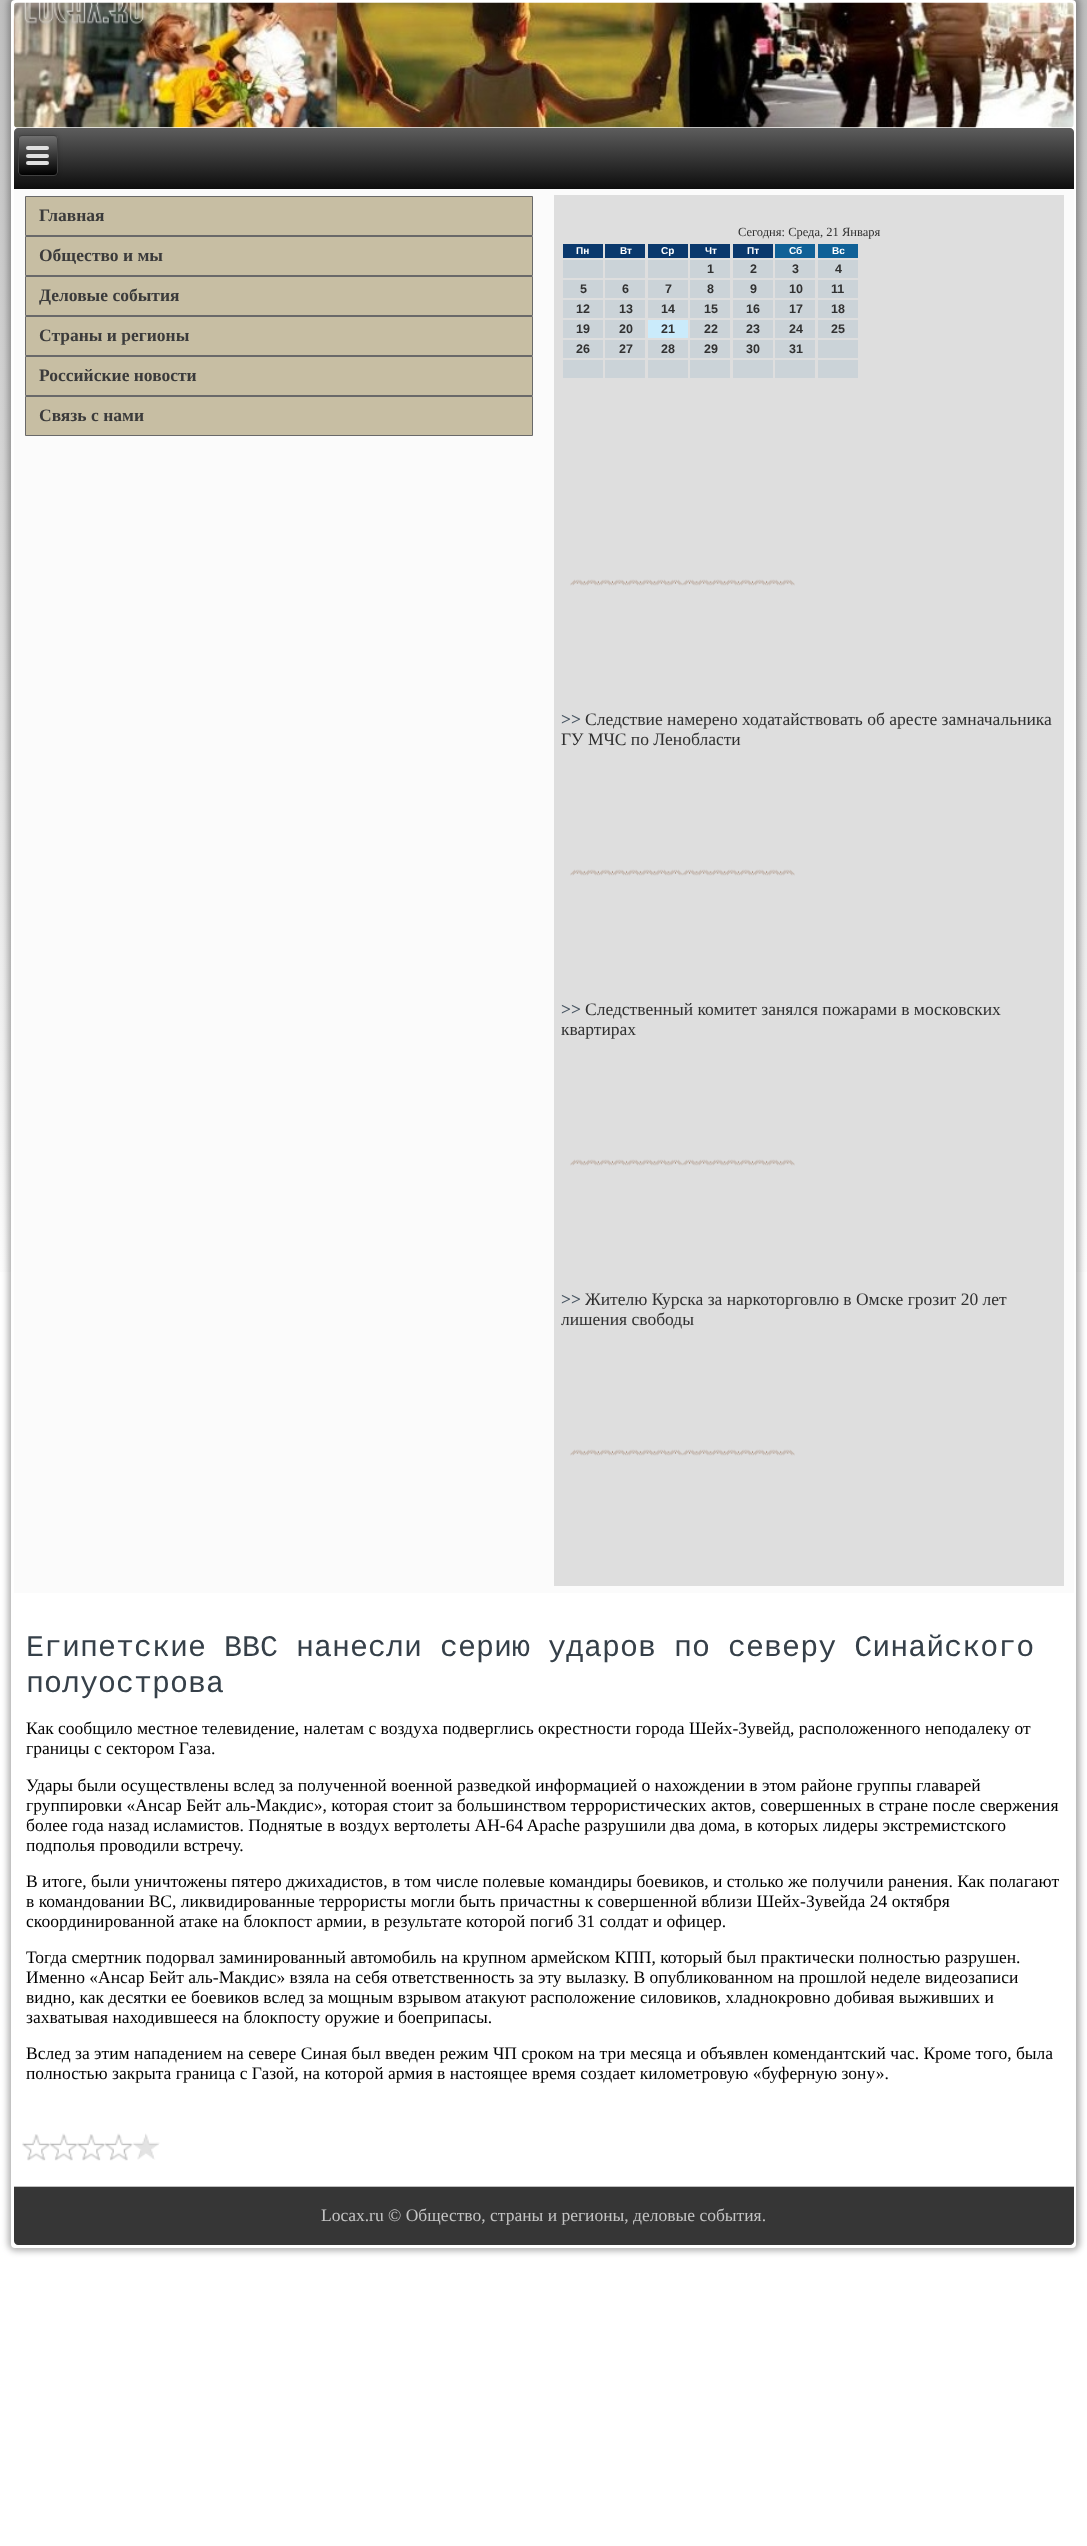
<svg xmlns="http://www.w3.org/2000/svg" width="1087" height="2546">
<style>
.a{font:bold 17.5px Liberation Serif;fill:#3b3b3b}
.b{font:12.5px Liberation Serif;fill:#303030}
.c{font:bold 10px Liberation Sans;fill:#fff}
.d{font:bold 12.5px Liberation Sans;fill:#303030}
.e{font:bold 17.5px Liberation Serif;fill:#4a5764}
.f{font:17.5px Liberation Serif;fill:#303030}
.g{font:30px Liberation Mono;fill:#364049}
.h{font:17.5px Liberation Serif;fill:#000}
.i{font:17.5px Liberation Serif;fill:#c4c4c4}
</style>
<defs>
<linearGradient id="g1" gradientUnits="userSpaceOnUse" x1="544" y1="0" x2="544" y2="2546"><stop offset="0" stop-color="#bfbfbf"/><stop offset="0.52" stop-color="#fff"/></linearGradient>
<linearGradient id="g2" gradientUnits="userSpaceOnUse" x1="544" y1="127" x2="544" y2="189"><stop offset="0" stop-color="#5e5e5e"/><stop offset="1" stop-color="#0d0d0d"/></linearGradient>
<clipPath id="clip1"><rect x="18" y="135" width="40" height="41" rx="4"/></clipPath>
<linearGradient id="g3" gradientUnits="userSpaceOnUse" x1="37" y1="136" x2="38" y2="175"><stop offset="0" stop-color="#707070"/><stop offset="1" stop-color="#000"/></linearGradient>
</defs>
<rect width="100%" height="100%" fill="#fff"/>
<path fill="url(#g1)" d="M0 0h1087v1272H0z"/>
<rect fill="#0000004d" filter="blur(3px)" x="8" y="-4" width="1072" height="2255" rx="8"/>
<rect fill="#fff" x="11" width="1065" height="2248" rx="4"/>
<image href="1.png" x="13" y="2" width="1061" height="126"/>
<path fill="url(#g2)" d="M18 128h1052c2 0 4 2 4 4v57h-1060v-57c0-2 2-4 4-4z"/>
<rect fill="#00000033" filter="blur(2px)" x="18" y="135" width="40" height="41" rx="4"/>
<g clip-path="url(#clip1)">
<path fill="url(#g3)" d="M18 136h40v39H18z"/>
</g>
<rect fill="none" stroke="#404040" x="18.5" y="135.5" width="39" height="40" rx="3.5"/>
<rect fill="#e0e0e0" x="26" y="146" width="23" height="4" rx="2"/>
<rect fill="#e0e0e0" x="26" y="154" width="23" height="4" rx="2"/>
<rect fill="#e0e0e0" x="26" y="161" width="23" height="4" rx="2"/>
<path fill="#fbfbfb" d="M14 189h1060v1404H14z"/>
<path fill="#c7bea3" stroke="#696969" d="M25.5 196.5h507v39H25.5z"/>
<path fill="#c7bea3" stroke="#696969" d="M25.5 236.5h507v39H25.5z"/>
<path fill="#c7bea3" stroke="#696969" d="M25.5 276.5h507v39H25.5z"/>
<path fill="#c7bea3" stroke="#696969" d="M25.5 316.5h507v39H25.5z"/>
<path fill="#c7bea3" stroke="#696969" d="M25.5 356.5h507v39H25.5z"/>
<path fill="#c7bea3" stroke="#696969" d="M25.5 396.5h507v39H25.5z"/>
<path fill="#dedede" d="M554 195h510v1391H554z"/>
<path fill="#0a386c" d="M563 244h40v14H563z"/>
<path fill="#0a386c" d="M605 244h40v14H605z"/>
<path fill="#0a386c" d="M648 244h40v14H648z"/>
<path fill="#0a386c" d="M690 244h40v14H690z"/>
<path fill="#0a386c" d="M733 244h40v14H733z"/>
<path fill="#106197" d="M775 244h40v14H775z"/>
<path fill="#106197" d="M818 244h40v14H818z"/>
<path fill="#cbd3d8" d="M563 260h40v18H563z"/>
<path fill="#cbd3d8" d="M605 260h40v18H605z"/>
<path fill="#cbd3d8" d="M648 260h40v18H648z"/>
<path fill="#cbd3d8" d="M690 260h40v18H690z"/>
<path fill="#cbd3d8" d="M733 260h40v18H733z"/>
<path fill="#cbd3d8" d="M775 260h40v18H775z"/>
<path fill="#cbd3d8" d="M818 260h40v18H818z"/>
<path fill="#cbd3d8" d="M563 280h40v18H563z"/>
<path fill="#cbd3d8" d="M605 280h40v18H605z"/>
<path fill="#cbd3d8" d="M648 280h40v18H648z"/>
<path fill="#cbd3d8" d="M690 280h40v18H690z"/>
<path fill="#cbd3d8" d="M733 280h40v18H733z"/>
<path fill="#cbd3d8" d="M775 280h40v18H775z"/>
<path fill="#cbd3d8" d="M818 280h40v18H818z"/>
<path fill="#cbd3d8" d="M563 300h40v18H563z"/>
<path fill="#cbd3d8" d="M605 300h40v18H605z"/>
<path fill="#cbd3d8" d="M648 300h40v18H648z"/>
<path fill="#cbd3d8" d="M690 300h40v18H690z"/>
<path fill="#cbd3d8" d="M733 300h40v18H733z"/>
<path fill="#cbd3d8" d="M775 300h40v18H775z"/>
<path fill="#cbd3d8" d="M818 300h40v18H818z"/>
<path fill="#cbd3d8" d="M563 320h40v18H563z"/>
<path fill="#cbd3d8" d="M605 320h40v18H605z"/>
<path fill="#caebfb" d="M648 320h40v18H648z"/>
<path fill="#cbd3d8" d="M690 320h40v18H690z"/>
<path fill="#cbd3d8" d="M733 320h40v18H733z"/>
<path fill="#cbd3d8" d="M775 320h40v18H775z"/>
<path fill="#cbd3d8" d="M818 320h40v18H818z"/>
<path fill="#cbd3d8" d="M563 340h40v18H563z"/>
<path fill="#cbd3d8" d="M605 340h40v18H605z"/>
<path fill="#cbd3d8" d="M648 340h40v18H648z"/>
<path fill="#cbd3d8" d="M690 340h40v18H690z"/>
<path fill="#cbd3d8" d="M733 340h40v18H733z"/>
<path fill="#cbd3d8" d="M775 340h40v18H775z"/>
<path fill="#cbd3d8" d="M818 340h40v18H818z"/>
<path fill="#cbd3d8" d="M563 360h40v18H563z"/>
<path fill="#cbd3d8" d="M605 360h40v18H605z"/>
<path fill="#cbd3d8" d="M648 360h40v18H648z"/>
<path fill="#cbd3d8" d="M690 360h40v18H690z"/>
<path fill="#cbd3d8" d="M733 360h40v18H733z"/>
<path fill="#cbd3d8" d="M775 360h40v18H775z"/>
<path fill="#cbd3d8" d="M818 360h40v18H818z"/>
<image href="2.png" x="570" y="579" width="225" height="7"/>
<image href="2.png" x="570" y="869" width="225" height="7"/>
<image href="3.png" x="570" y="1159" width="225" height="7"/>
<image href="2.png" x="570" y="1449" width="225" height="7"/>
<image href="4.png" x="22" y="2134" width="28" height="27"/>
<image href="5.png" x="50" y="2133" width="28" height="28"/>
<image href="6.png" x="77" y="2134" width="28" height="27"/>
<image href="5.png" x="105" y="2133" width="28" height="28"/>
<image href="7.png" x="133" y="2133" width="27" height="27"/>
<path fill="#363636" d="M14 2186h1060v55c0 2-2 4-4 4h-1052c-2 0-4-2-4-4z"/>
<path fill="#bfbfbf" d="M14 2186h1060v1H14z"/>
<text class="a" x="39" y="221">Главная</text>
<text class="a" x="39" y="261">Общество и мы</text>
<text class="a" x="39" y="301">Деловые события</text>
<text class="a" x="39" y="341">Страны и регионы</text>
<text class="a" x="39" y="381">Российские новости</text>
<text class="a" x="39" y="421">Связь с нами</text>
<text class="b" x="738" y="236">Сегодня: Среда, 21 Января</text>
<text class="c" x="576" y="254">Пн</text>
<text class="c" x="620" y="254">Вт</text>
<text class="c" x="661" y="254">Ср</text>
<text class="c" x="705" y="254">Чт</text>
<text class="c" x="747" y="254">Пт</text>
<text class="c" x="789" y="254">Сб</text>
<text class="c" x="832" y="254">Вс</text>
<text class="d" x="707" y="273">1</text>
<text class="d" x="750" y="273">2</text>
<text class="d" x="792" y="273">3</text>
<text class="d" x="835" y="273">4</text>
<text class="d" x="580" y="293">5</text>
<text class="d" x="622" y="293">6</text>
<text class="d" x="665" y="293">7</text>
<text class="d" x="707" y="293">8</text>
<text class="d" x="750" y="293">9</text>
<text class="d" x="789" y="293">10</text>
<text class="d" x="831" y="293">11</text>
<text class="d" x="576" y="313">12</text>
<text class="d" x="619" y="313">13</text>
<text class="d" x="661" y="313">14</text>
<text class="d" x="704" y="313">15</text>
<text class="d" x="746" y="313">16</text>
<text class="d" x="789" y="313">17</text>
<text class="d" x="831" y="313">18</text>
<text class="d" x="576" y="333">19</text>
<text class="d" x="619" y="333">20</text>
<text class="d" x="661" y="333">21</text>
<text class="d" x="704" y="333">22</text>
<text class="d" x="746" y="333">23</text>
<text class="d" x="789" y="333">24</text>
<text class="d" x="831" y="333">25</text>
<text class="d" x="576" y="353">26</text>
<text class="d" x="619" y="353">27</text>
<text class="d" x="661" y="353">28</text>
<text class="d" x="704" y="353">29</text>
<text class="d" x="746" y="353">30</text>
<text class="d" x="789" y="353">31</text>
<text class="e" x="561" y="725">&gt;&gt;</text>
<text class="f" x="585" y="725">Следствие намерено ходатайствовать об аресте замначальника</text>
<text class="f" x="561" y="745">ГУ МЧС по Ленобласти</text>
<text class="e" x="561" y="1015">&gt;&gt;</text>
<text class="f" x="585" y="1015">Следственный комитет занялся пожарами в московских</text>
<text class="f" x="561" y="1035">квартирах</text>
<text class="e" x="561" y="1305">&gt;&gt;</text>
<text class="f" x="585" y="1305">Жителю Курска за наркоторговлю в Омске грозит 20 лет</text>
<text class="f" x="561" y="1325">лишения свободы</text>
<text class="g" x="26" y="1656">Египетские ВВС нанесли серию ударов по северу Синайского</text>
<text class="g" x="26" y="1692">полуострова</text>
<text class="h" x="26" y="1734">Как сообщило местное телевидение, налетам с воздуха подверглись окрестности города Шейх-Зувейд, расположенного неподалеку от</text>
<text class="h" x="26" y="1754">границы с сектором Газа.</text>
<text class="h" x="26" y="1791">Удары были осуществлены вслед за полученной военной разведкой информацией о нахождении в этом районе группы главарей</text>
<text class="h" x="26" y="1811">группировки «Ансар Бейт аль-Макдис», которая стоит за большинством террористических актов, совершенных в стране после свержения</text>
<text class="h" x="26" y="1831">более года назад исламистов. Поднятые в воздух вертолеты AH-64 Apache разрушили два дома, в которых лидеры экстремистского</text>
<text class="h" x="26" y="1851">подполья проводили встречу.</text>
<text class="h" x="26" y="1887">В итоге, были уничтожены пятеро джихадистов, в том числе полевые командиры боевиков, и столько же получили ранения. Как полагают</text>
<text class="h" x="26" y="1907">в командовании ВС, ликвидированные террористы могли быть причастны к совершенной вблизи Шейх-Зувейда 24 октября</text>
<text class="h" x="26" y="1927">скоординированной атаке на блокпост армии, в результате которой погиб 31 солдат и офицер.</text>
<text class="h" x="26" y="1963">Тогда смертник подорвал заминированный автомобиль на крупном армейском КПП, который был практически полностью разрушен.</text>
<text class="h" x="26" y="1983">Именно «Ансар Бейт аль-Макдис» взяла на себя ответственность за эту вылазку. В опубликованном на прошлой неделе видеозаписи</text>
<text class="h" x="26" y="2003">видно, как десятки ее боевиков вслед за мощным взрывом атакуют расположение силовиков, хладнокровно добивая выживших и</text>
<text class="h" x="26" y="2023">захватывая находившееся на блокпосту оружие и боеприпасы.</text>
<text class="h" x="26" y="2059">Вслед за этим нападением на севере Синая был введен режим ЧП сроком на три месяца и объявлен комендантский час. Кроме того, была</text>
<text class="h" x="26" y="2079">полностью закрыта граница с Газой, на которой армия в настоящее время создает километровую «буферную зону».</text>
<text class="i" x="321" y="2221">Locax.ru © Общество, страны и регионы, деловые события.</text>
</svg>
